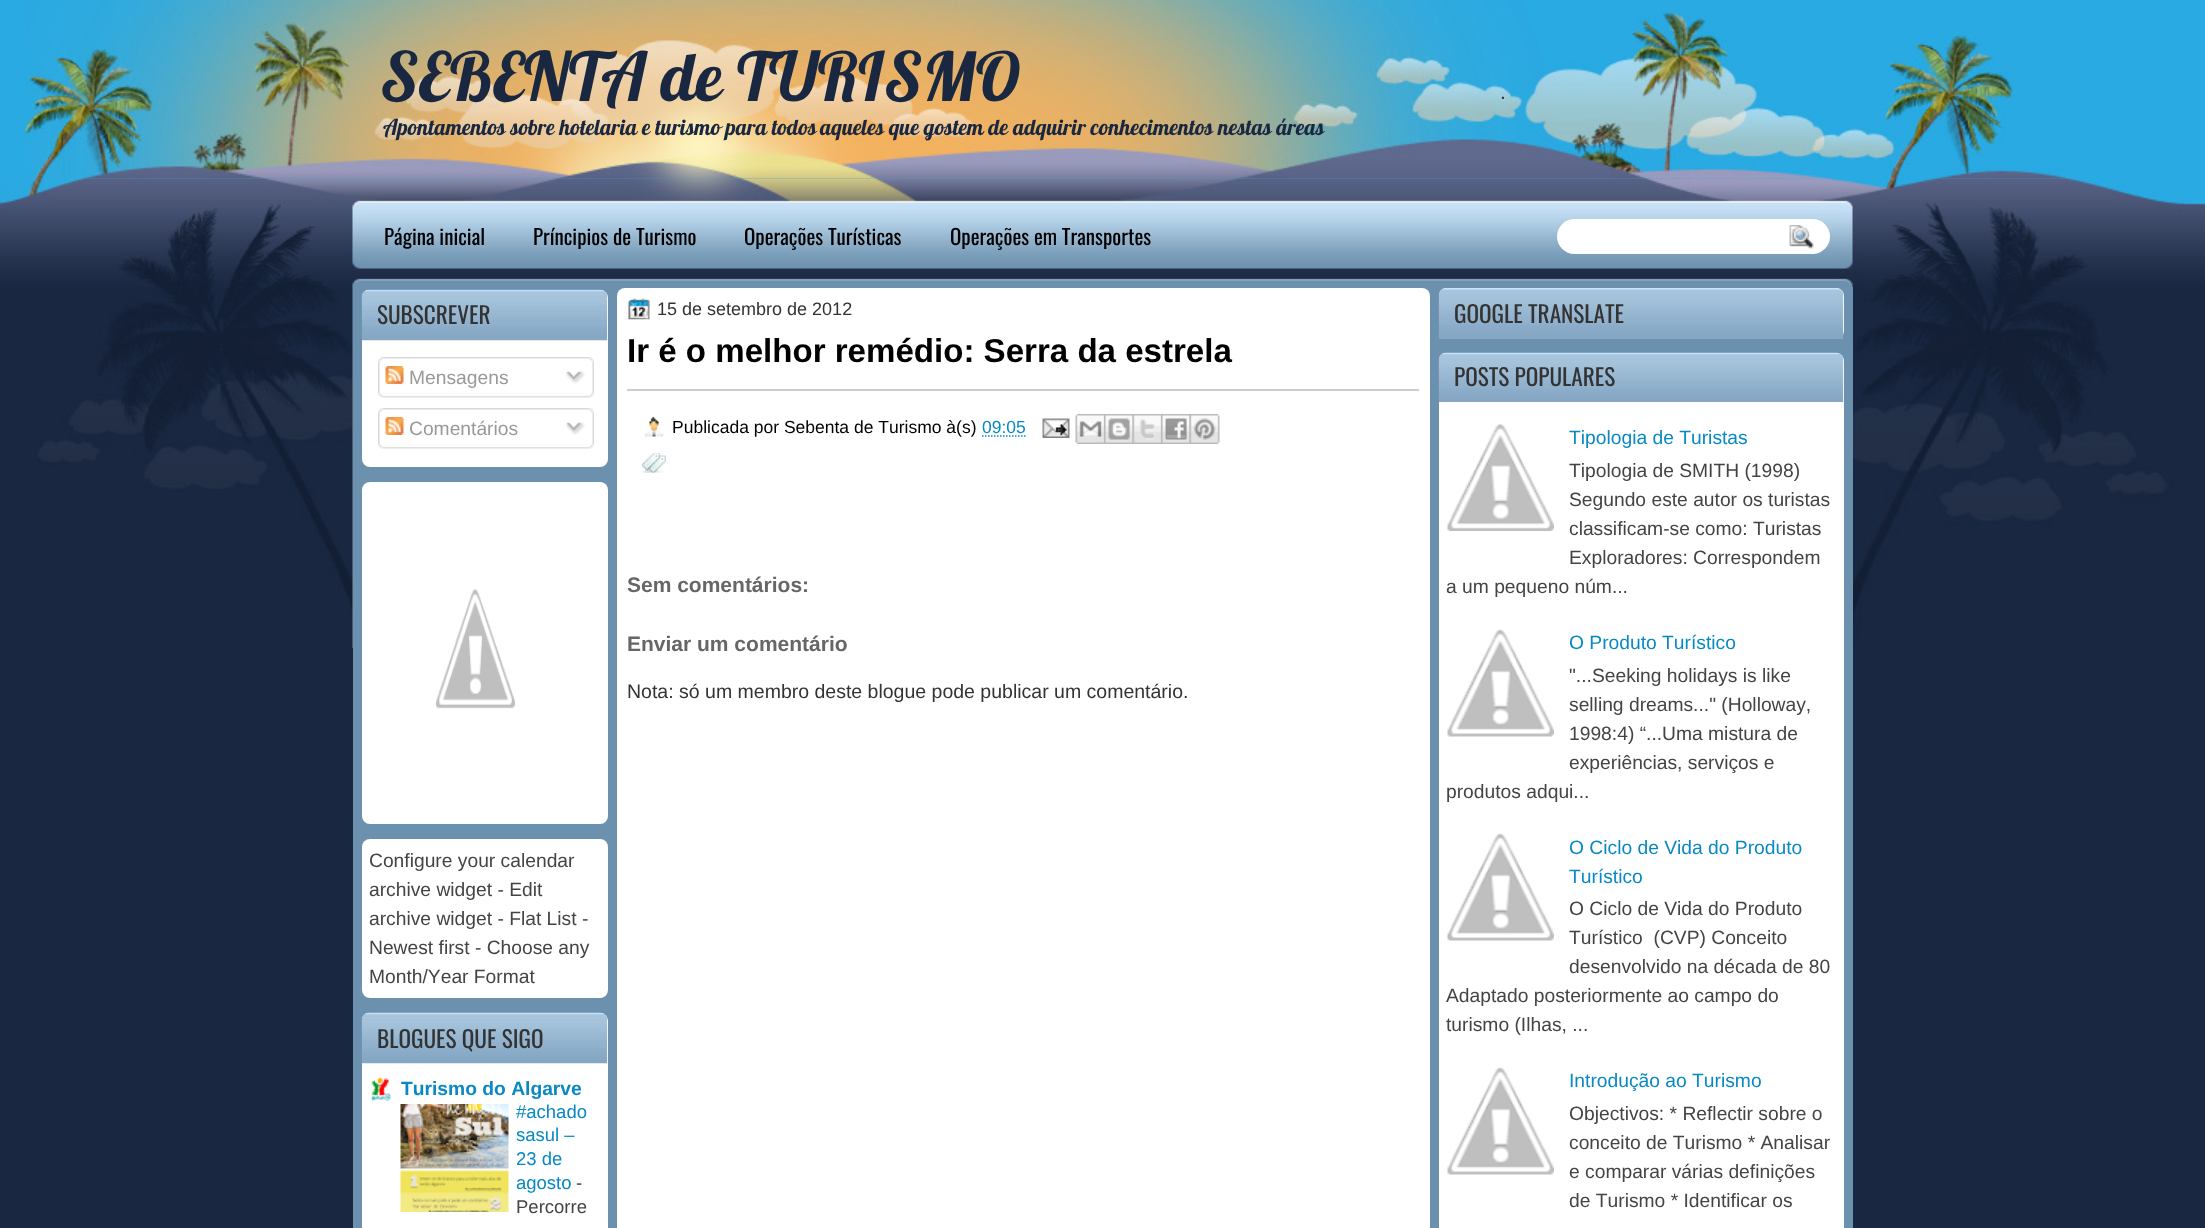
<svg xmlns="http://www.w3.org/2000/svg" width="2205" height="1228">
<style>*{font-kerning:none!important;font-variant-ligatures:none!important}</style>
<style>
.a{font:67.5px Lobster;fill:#192741}
.b{font:21.9px Lobster;fill:#192741}
.c{font:21px Liberation Sans;fill:#333}
.d{font:21px Oswald;fill:#000}
.e{font:23.25px Oswald;fill:#333}
.f{font:19.25px Liberation Sans;fill:#999}
.g{font:19.25px Liberation Sans;fill:#444}
.h{font:bold 19.25px Liberation Sans;fill:#0889c4}
.i{font:18.5px Liberation Sans;fill:#0889c4}
.j{font:18.5px Liberation Sans;fill:#444}
.k{font:18px Liberation Sans;fill:#333}
.l{font:bold 33.1px Liberation Sans;fill:#000}
.m{font:17.5px Liberation Sans;fill:#000}
.n{font:17.5px Liberation Sans;fill:#0889c4}
.o{font:bold 21px Liberation Sans;fill:#666}
.p{font:19.5px Liberation Sans;fill:#333}
.q{font:19.25px Liberation Sans;fill:#0889c4}
</style>
<rect width="100%" height="100%" fill="#192741"/>
<image href="1.png" x="0" y="0" width="2205" height="179"/>
<image href="2.png" x="25" y="0" width="2041" height="179"/>
<image href="3.png" x="0" y="178" width="2205" height="470"/>
<rect fill="#fff" x="1557" y="219" width="273" height="35" rx="17.5"/>
<image href="4.png" x="1789" y="225" width="25" height="24"/>
<path fill="#6c91ae" d="M353 287h1500v941H353z"/>
<rect fill="#fff" x="362" y="290" width="246" height="177" rx="8"/>
<image href="5.png" x="361" y="289" width="247" height="52"/>
<image href="6.png" x="378" y="357" width="216" height="36"/>
<image href="7.png" x="385" y="366" width="19" height="18"/>
<image href="8.png" x="565" y="370" width="20" height="14"/>
<image href="9.png" x="378" y="393" width="216" height="5"/>
<image href="6.png" x="378" y="408" width="216" height="36"/>
<image href="7.png" x="385" y="417" width="19" height="18"/>
<image href="8.png" x="565" y="421" width="20" height="14"/>
<image href="9.png" x="378" y="444" width="216" height="5"/>
<rect fill="#fff" x="362" y="482" width="246" height="342" rx="8"/>
<image href="10.png" x="436" y="589" width="79" height="120"/>
<rect fill="#fff" x="362" y="839" width="246" height="159" rx="8"/>
<rect fill="#fff" x="362" y="1013" width="246" height="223" rx="8"/>
<image href="11.png" x="361" y="1012" width="247" height="52"/>
<image href="12.png" x="370" y="1077" width="22" height="24"/>
<image href="13.png" x="400" y="1104" width="109" height="108"/>
<rect fill="#fff" x="617" y="288" width="813" height="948" rx="8"/>
<image href="14.png" x="628" y="298" width="22" height="22"/>
<path fill="#ccc" d="M627 389h792v2H627z"/>
<image href="15.png" x="644" y="417" width="20" height="20"/>
<path fill="none" stroke="#0889c4" stroke-width="1.5" stroke-dasharray="1.5 1.5" d="M982 436h44"/>
<image href="16.png" x="1042" y="418" width="28" height="20"/>
<image href="17.png" x="1075" y="414" width="29" height="30"/>
<image href="18.png" x="1104" y="414" width="29" height="30"/>
<image href="19.png" x="1132" y="414" width="29" height="30"/>
<image href="20.png" x="1161" y="414" width="29" height="30"/>
<image href="21.png" x="1189" y="414" width="31" height="30"/>
<image href="22.png" x="642" y="453" width="24" height="20"/>
<rect fill="#fff" x="1439" y="288" width="405" height="51" rx="8"/>
<image href="23.png" x="1438" y="288" width="406" height="51"/>
<rect fill="#fff" x="1439" y="353" width="405" height="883" rx="8"/>
<image href="24.png" x="1438" y="352" width="406" height="50"/>
<image href="25.png" x="1447" y="424" width="107" height="107"/>
<image href="26.png" x="1447" y="629" width="107" height="108"/>
<image href="26.png" x="1447" y="833" width="107" height="108"/>
<image href="26.png" x="1447" y="1067" width="107" height="108"/>
<text class="a" x="380" y="101">SEBENTA de TURISMO</text>
<text class="b" x="383" y="135">Apontamentos sobre hotelaria e turismo para todos</text>
<text class="b" x="820" y="135">aqueles que gostem de adquirir conhecimentos</text>
<text class="b" x="1218" y="135">nestas áreas</text>
<text class="c" x="1500" y="99">.</text>
<text class="d" x="384" y="245">Página inicial</text>
<text class="d" x="533" y="245">Príncipios de Turismo</text>
<text class="d" x="744" y="245">Operações Turísticas</text>
<text class="d" x="950" y="245">Operações em Transportes</text>
<text class="e" x="377" y="324">SUBSCREVER</text>
<text class="f" x="409" y="384">Mensagens</text>
<text class="f" x="409" y="435">Comentários</text>
<text class="g" x="369" y="867">Configure your calendar</text>
<text class="g" x="369" y="896">archive widget - Edit</text>
<text class="g" x="369" y="925">archive widget - Flat List -</text>
<text class="g" x="369" y="954">Newest first - Choose any</text>
<text class="g" x="369" y="983">Month/Year Format</text>
<text class="e" x="377" y="1048">BLOGUES QUE SIGO</text>
<text class="h" x="401" y="1095">Turismo do Algarve</text>
<text class="i" x="516" y="1118">#achado</text>
<text class="i" x="516" y="1141">sasul –</text>
<text class="i" x="516" y="1165">23 de</text>
<text class="i" x="516" y="1189">agosto</text>
<text class="j" x="576" y="1189">-</text>
<text class="j" x="516" y="1213">Percorre</text>
<text class="k" x="657" y="315">15 de setembro de 2012</text>
<text class="l" x="627" y="362">Ir é o melhor remédio: Serra da estrela</text>
<text class="m" x="672" y="433">Publicada por Sebenta de Turismo à(s)</text>
<text class="n" x="982" y="433">09:05</text>
<text class="o" x="627" y="592">Sem comentários:</text>
<text class="o" x="627" y="651">Enviar um comentário</text>
<text class="p" x="627" y="698">Nota: só um membro deste blogue pode publicar um comentário.</text>
<text class="e" x="1454" y="323">GOOGLE TRANSLATE</text>
<text class="e" x="1454" y="386">POSTS POPULARES</text>
<text class="q" x="1569" y="444">Tipologia de Turistas</text>
<text class="g" x="1569" y="477">Tipologia de SMITH (1998)</text>
<text class="g" x="1569" y="506">Segundo este autor os turistas</text>
<text class="g" x="1569" y="535">classificam-se como: Turistas</text>
<text class="g" x="1569" y="564">Exploradores: Correspondem</text>
<text class="g" x="1446" y="593">a um pequeno núm...</text>
<text class="q" x="1569" y="649">O Produto Turístico</text>
<text class="g" x="1569" y="682">"...Seeking holidays is like</text>
<text class="g" x="1569" y="711">selling dreams..." (Holloway,</text>
<text class="g" x="1569" y="740">1998:4) “...Uma mistura de</text>
<text class="g" x="1569" y="769">experiências, serviços e</text>
<text class="g" x="1446" y="798">produtos adqui...</text>
<text class="q" x="1569" y="854">O Ciclo de Vida do Produto</text>
<text class="q" x="1569" y="883">Turístico</text>
<text class="g" x="1569" y="915">O Ciclo de Vida do Produto</text>
<text class="g" xml:space="preserve" x="1569" y="944">Turístico  (CVP) Conceito</text>
<text class="g" x="1569" y="973">desenvolvido na década de 80</text>
<text class="g" x="1446" y="1002">Adaptado posteriormente ao campo do</text>
<text class="g" x="1446" y="1031">turismo (Ilhas, ...</text>
<text class="q" x="1569" y="1087">Introdução ao Turismo</text>
<text class="g" x="1569" y="1120">Objectivos: * Reflectir sobre o</text>
<text class="g" x="1569" y="1149">conceito de Turismo * Analisar</text>
<text class="g" x="1569" y="1178">e comparar várias definições</text>
<text class="g" x="1569" y="1207">de Turismo * Identificar os</text>
</svg>
